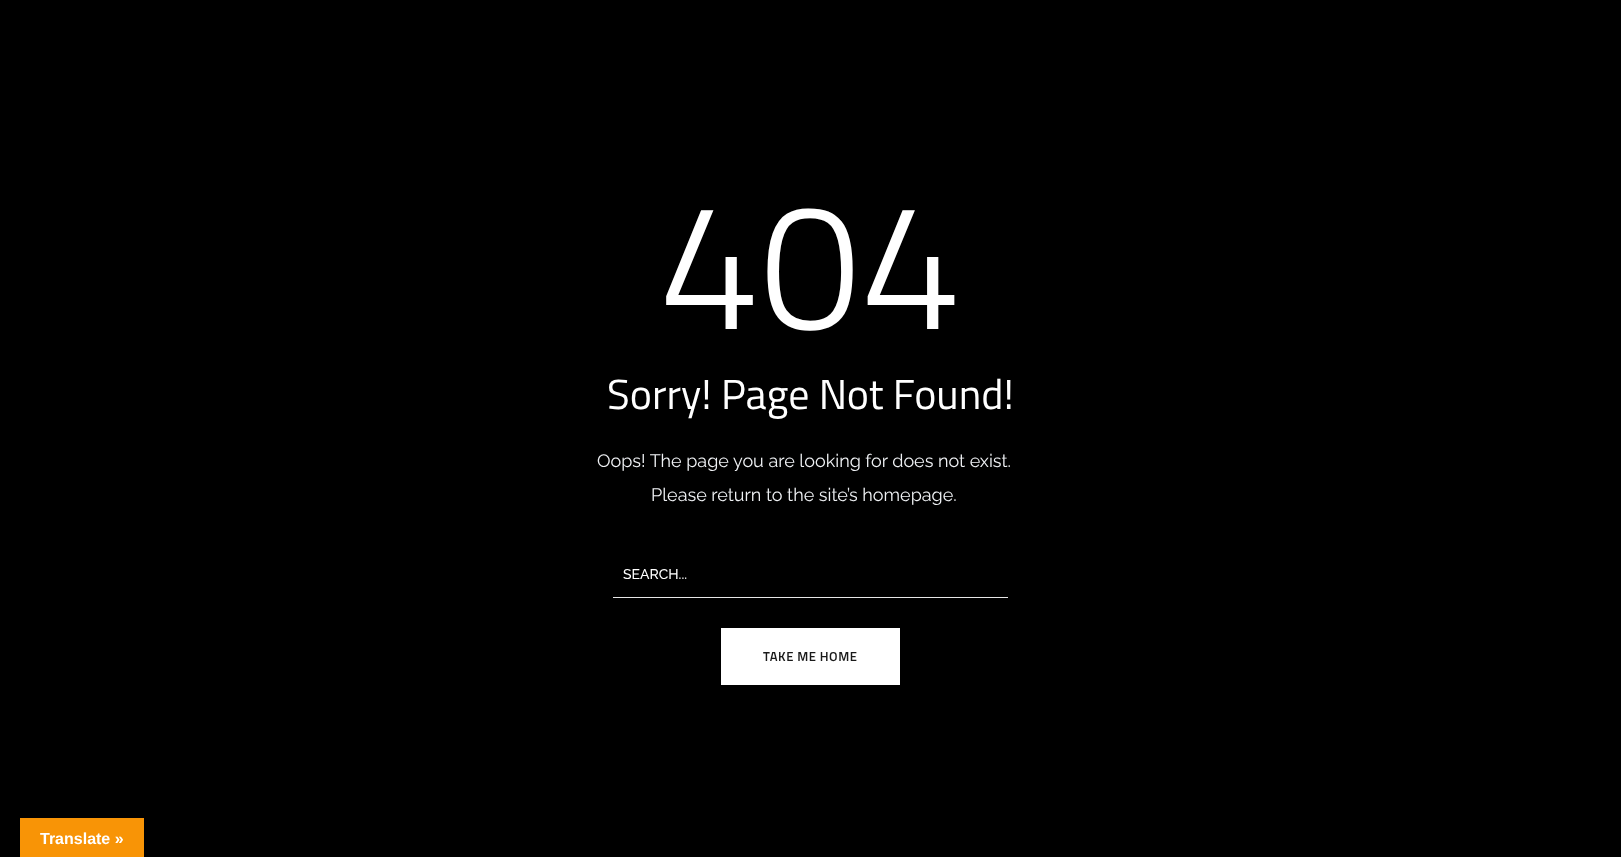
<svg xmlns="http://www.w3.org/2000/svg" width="1621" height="857">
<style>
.a{font:300 180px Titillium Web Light;fill:#fff}
.b{font:42px Titillium Web;fill:#fff}
.c{font:18px Raleway;fill:#f0f2f5}
.d{font:500 14px Raleway;fill:#fff}
.e{font:600 13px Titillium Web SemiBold;letter-spacing:0.5px;fill:#1a1a1a}
.f{font:bold 16px Liberation Sans;fill:#fff}
</style>
<rect width="100%" height="100%" fill="#000"/>
<path fill="#e6e6e6" d="M613 597h395v1H613z"/>
<path fill="#fff" d="M721 628h179v57H721z"/>
<path fill="#f89406" d="M20 818h124v39H20z"/>
<text class="a" x="659" y="329">404</text>
<text class="b" x="607" y="409">Sorry! Page Not Found!</text>
<text class="c" x="597" y="467">Oops! The page you are looking for does not exist.</text>
<text class="c" x="651" y="501">Please return to the site’s homepage.</text>
<text class="d" x="623" y="579">SEARCH...</text>
<text class="e" x="763" y="661">TAKE ME HOME</text>
<text class="f" x="40" y="844">Translate »</text>
</svg>
